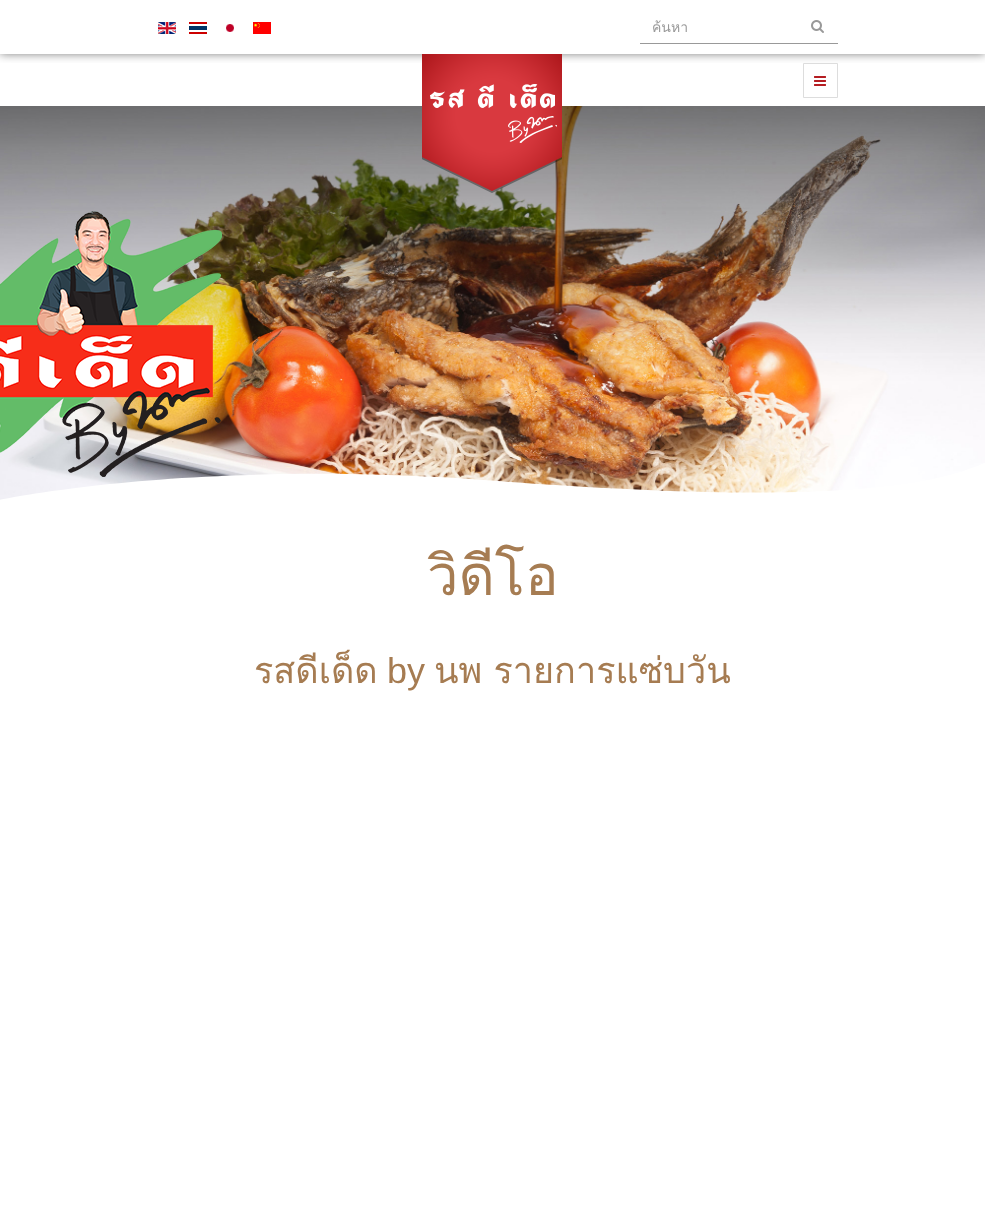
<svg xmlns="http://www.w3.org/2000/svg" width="985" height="1214">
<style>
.a{font:14px Loma;fill:#999}
.b{font:56px Loma;fill:#a67c52}
.c{font:36px Loma;fill:#a67c52}
.d{font:36px Liberation Sans;fill:#a67c52}
</style>
<defs>
<clipPath id="clip1"><path d="M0 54h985v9H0z"/></clipPath>
<clipPath id="clip2"><path d="M0 461h985v39H0z"/></clipPath>
<clipPath id="clip3"><path d="M652 16h152v22H652z"/></clipPath>
</defs>
<rect width="100%" height="100%" fill="#fff"/>
<path fill="none" stroke="#ddd" d="M803.5 63.5h34v34H803.5z"/>
<g clip-path="url(#clip1)">
<path fill="#00000080" filter="blur(5px)" d="M0 0h985v54H0z"/>
</g>
<image href="1.png" x="158" y="22" width="18" height="12"/>
<image href="2.png" x="189" y="22" width="18" height="12"/>
<image href="3.png" x="226" y="24" width="8" height="8"/>
<image href="4.png" x="253" y="22" width="18" height="12"/>
<path fill="#999" d="M640 43h198v1H640z"/>
<image href="5.png" x="811" y="20" width="13" height="13"/>
<image href="8.png" x="0" y="106" width="985" height="394"/>
<image href="6.png" x="422" y="54" width="140" height="139"/>
<image href="7.png" x="814" y="76" width="12" height="10"/>
<image href="9.png" x="0" y="211" width="222" height="266"/>
<g clip-path="url(#clip2)">
<path fill="#fff" d="M-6 501c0 0 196-44 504-20c357 27 444 1 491-20v40z"/>
</g>
<g clip-path="url(#clip3)">
<text class="a" x="652" y="32">ค้นหา</text>
</g>
<text class="b" x="427" y="595">วิดีโอ</text>
<text class="c" x="254" y="683">รสดีเด็ด</text>
<text class="d" x="387" y="683">by</text>
<text class="c" x="434" y="683" word-spacing="-1">นพ รายการแซ่บวัน</text>
</svg>
